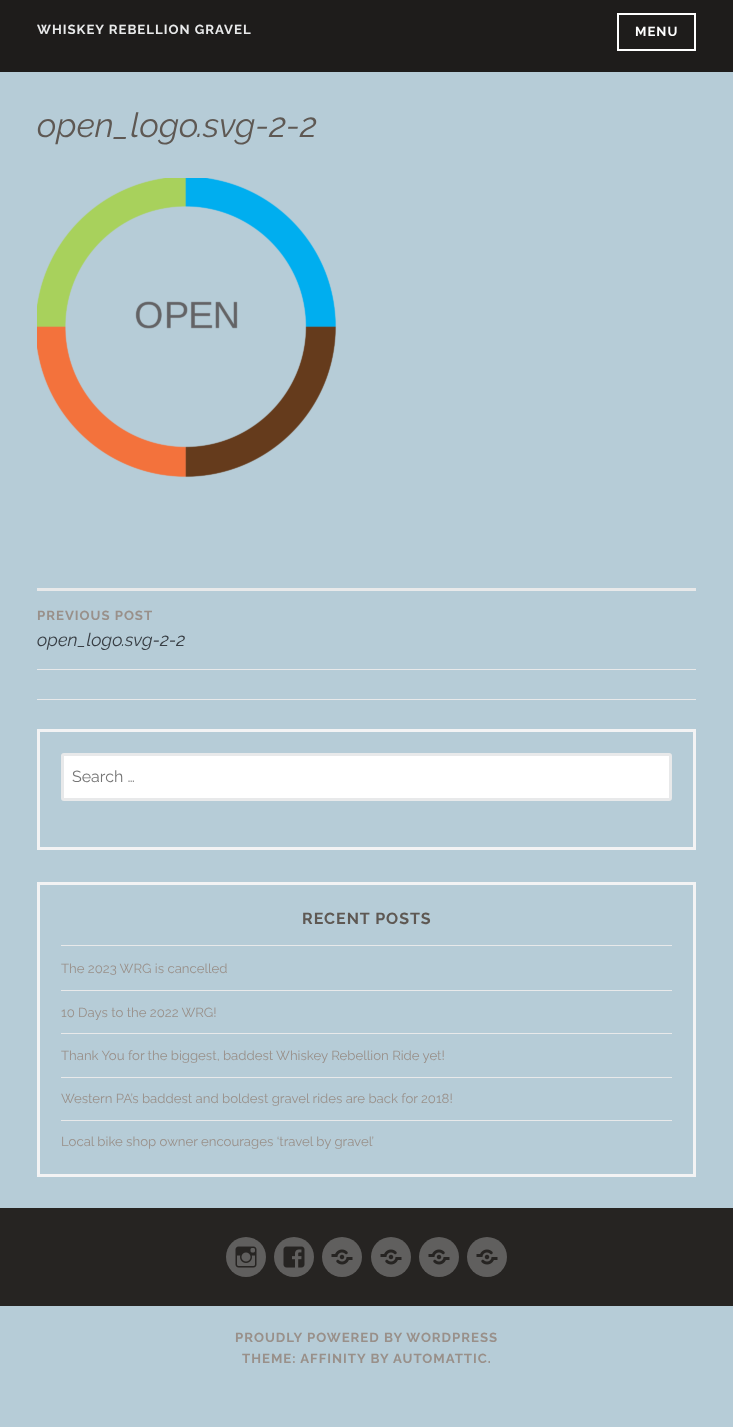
<svg xmlns="http://www.w3.org/2000/svg" width="733" height="1427">
<style>
.a{font:bold 13.2px Raleway;letter-spacing:1px;fill:#e8e9ea}
.b{font:bold 13.2px Raleway;letter-spacing:1px;fill:#fff}
.c{font:italic 34px Raleway;fill:#5e5853}
.d{font:bold 13.2px Raleway;letter-spacing:1px;fill:#99908a}
.e{font:italic 18px Raleway;fill:#383e44}
.f{font:16px Raleway;fill:#757575}
.g{font:bold 16px Raleway;letter-spacing:1px;fill:#5e5853}
.h{font:13.2px Raleway;fill:#99908a}
</style>
<rect width="100%" height="100%" fill="#b6ccd7"/>
<path fill="#1e1c1b" d="M0 0h733v72H0z"/>
<path fill="none" stroke="#fff" stroke-width="2" d="M618 14h77v36H618z"/>
<image href="1.png" x="37" y="178" width="300" height="300"/>
<path fill="#e8e9ea" d="M37 588h659v3H37z"/>
<path fill="#e8e9ea" d="M37 699h659v1H37z"/>
<path fill="#e8e9ea" d="M37 669h659v1H37z"/>
<path fill="none" stroke="#f3f3f4" stroke-width="3" d="M38.5 730.5h656v118H38.5z"/>
<rect fill="#fff" stroke="#e8e9ea" stroke-width="3" x="62.5" y="754.5" width="608" height="45" rx="1.5"/>
<path fill="none" stroke="#f3f3f4" stroke-width="3" d="M38.5 883.5h656v292H38.5z"/>
<path fill="#e8e9ea" d="M61 945h611v1H61z"/>
<path fill="#e8e9ea" d="M61 990h611v1H61z"/>
<path fill="#e8e9ea" d="M61 1033h611v1H61z"/>
<path fill="#e8e9ea" d="M61 1077h611v1H61z"/>
<path fill="#e8e9ea" d="M61 1120h611v1H61z"/>
<path fill="#262422" d="M0 1208h733v98H0z"/>
<circle fill="#605f5e" cx="246" cy="1257" r="20"/>
<image href="2.png" x="235" y="1246" width="22" height="22"/>
<circle fill="#605f5e" cx="294" cy="1257" r="20"/>
<image href="3.png" x="283" y="1246" width="22" height="22"/>
<circle fill="#605f5e" cx="342" cy="1257" r="20"/>
<image href="4.png" x="331" y="1249" width="22" height="16"/>
<circle fill="#605f5e" cx="391" cy="1257" r="20"/>
<image href="4.png" x="380" y="1249" width="22" height="16"/>
<circle fill="#605f5e" cx="439" cy="1257" r="20"/>
<image href="4.png" x="428" y="1249" width="22" height="16"/>
<circle fill="#605f5e" cx="487" cy="1257" r="20"/>
<image href="4.png" x="476" y="1249" width="22" height="16"/>
<text class="a" x="37" y="34">WHISKEY REBELLION GRAVEL</text>
<text class="b" x="635" y="36">MENU</text>
<text class="c" x="37" y="137">open_logo.svg-2-2</text>
<text class="d" x="37" y="620">PREVIOUS POST</text>
<text class="e" x="37" y="646">open_logo.svg-2-2</text>
<text class="f" x="72" y="782">Search …</text>
<text class="g" x="302" y="924">RECENT POSTS</text>
<text class="h" x="61" y="973">The 2023 WRG is cancelled</text>
<text class="h" x="61" y="1017">10 Days to the 2022 WRG!</text>
<text class="h" x="61" y="1060">Thank You for the biggest, baddest Whiskey Rebellion Ride yet!</text>
<text class="h" x="61" y="1103">Western PA’s baddest and boldest gravel rides are back for 2018!</text>
<text class="h" x="61" y="1146">Local bike shop owner encourages ‘travel by gravel’</text>
<text class="d" x="235" y="1342">PROUDLY POWERED BY WORDPRESS</text>
<text class="d" x="242" y="1363">THEME: AFFINITY BY</text>
<text class="d" x="393" y="1363">AUTOMATTIC.</text>
</svg>
